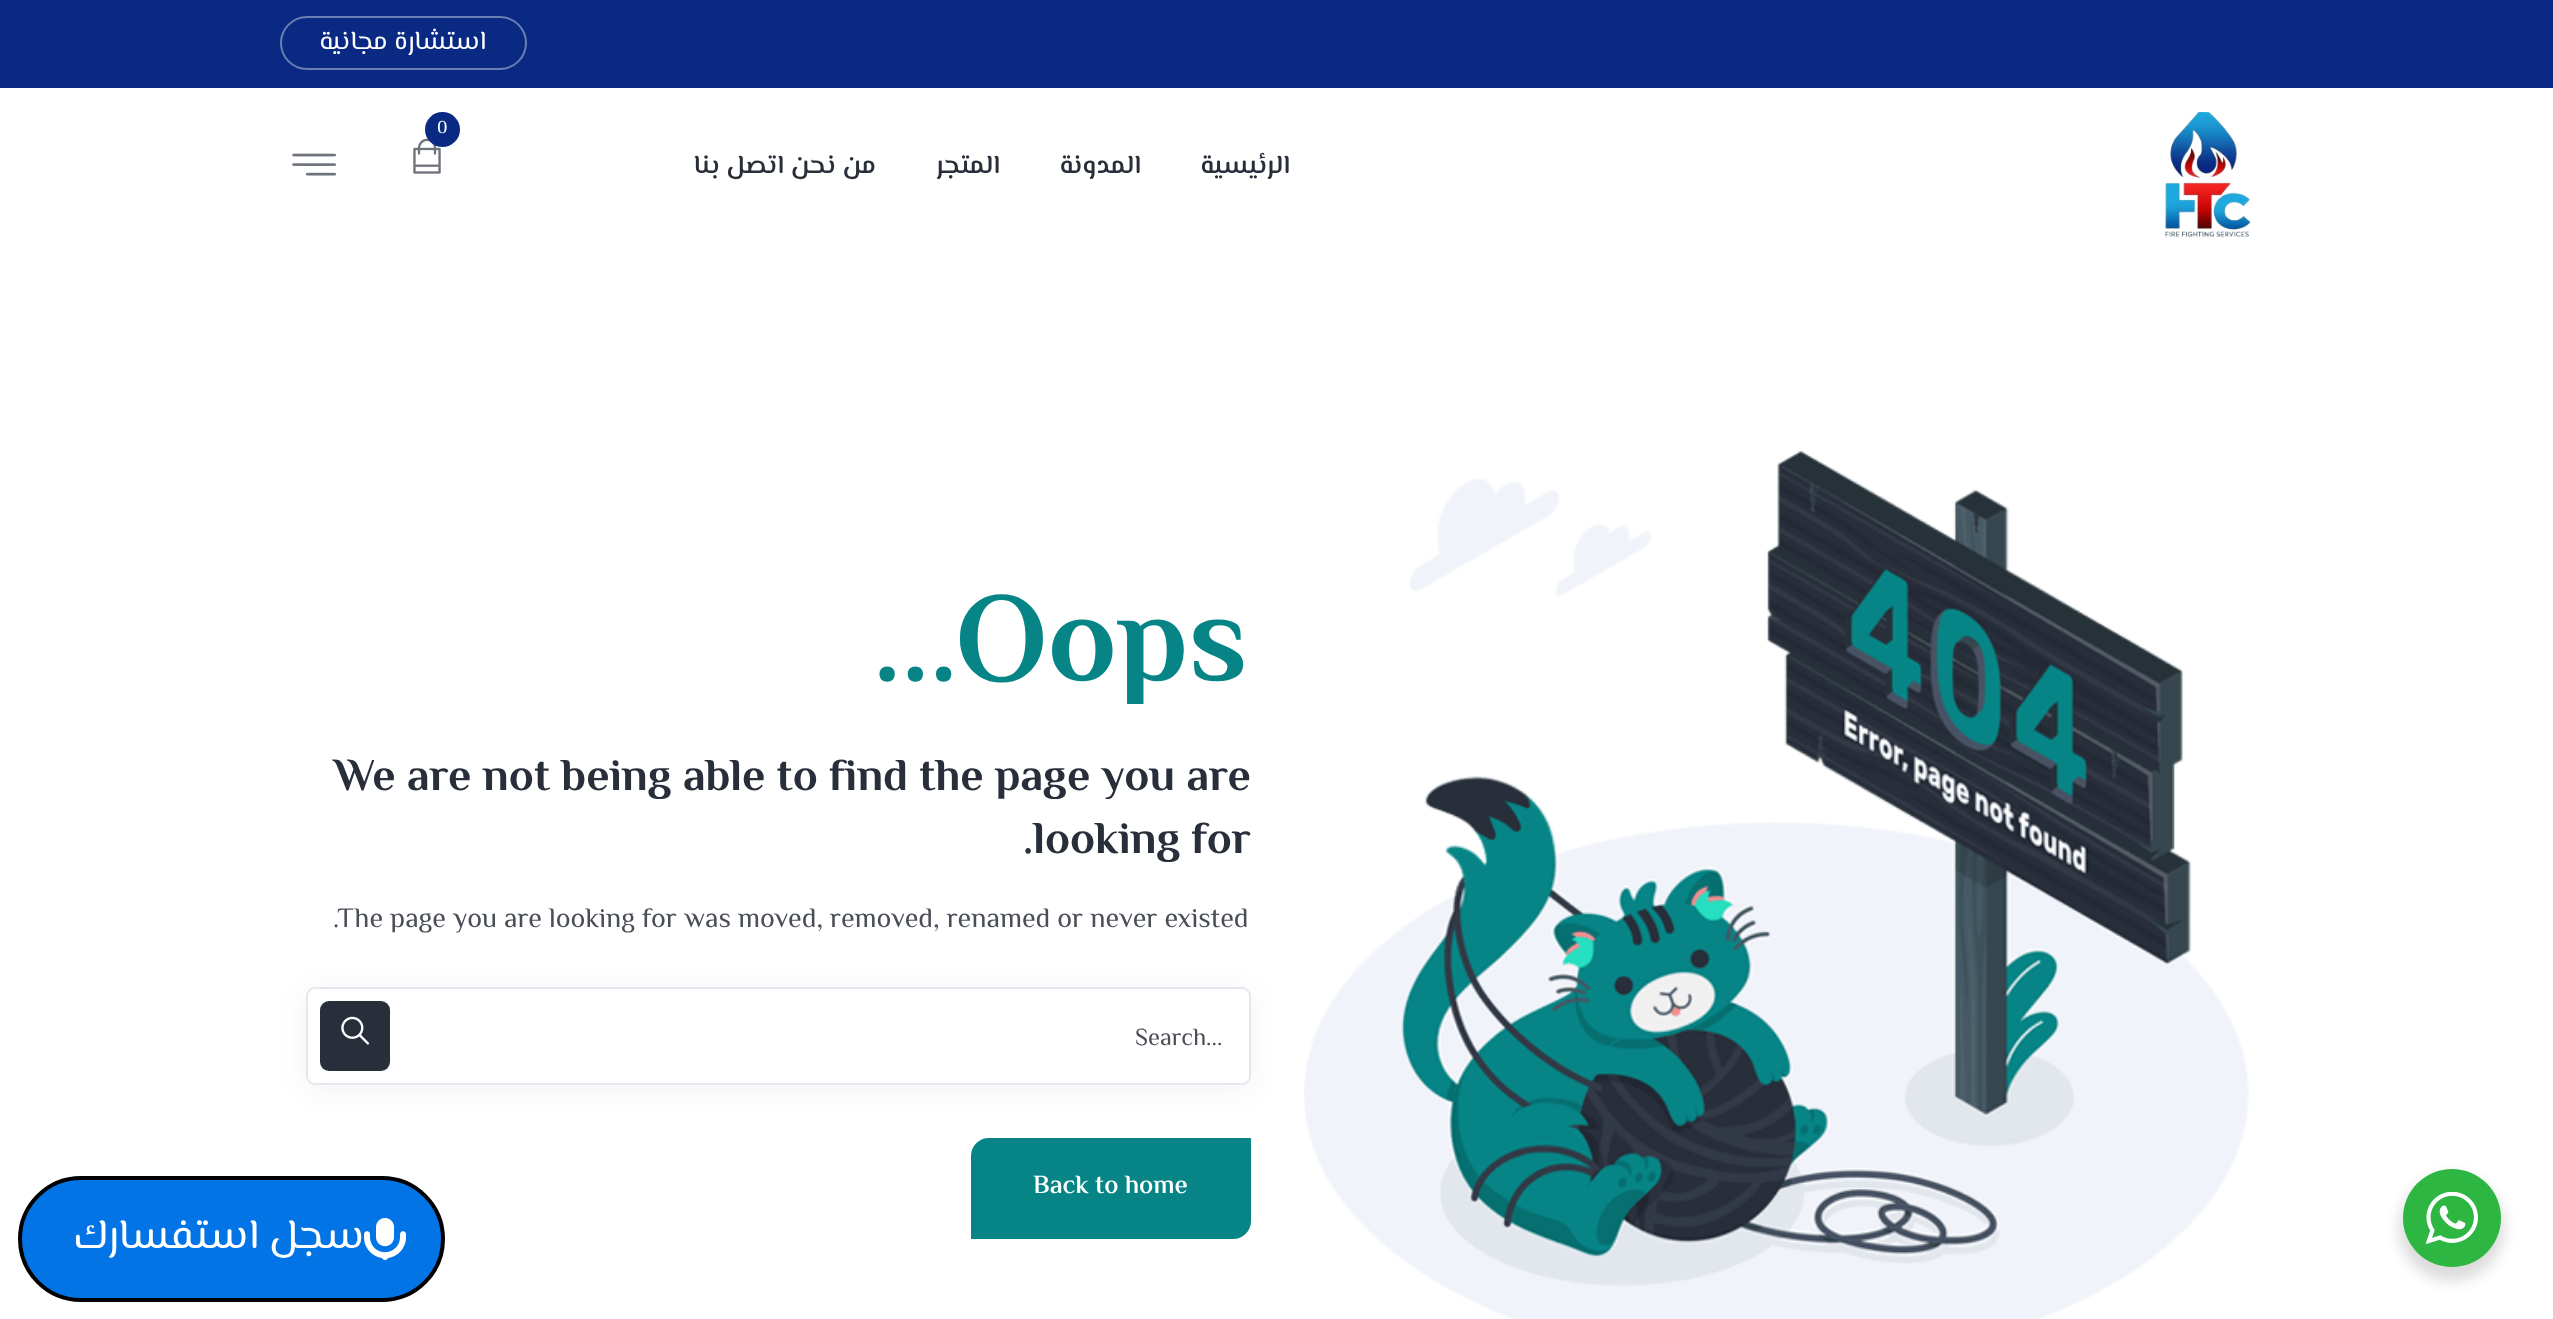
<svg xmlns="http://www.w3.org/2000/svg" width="2553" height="1319">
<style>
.a{font:26.25px El Messiri;direction:rtl;fill:#fff}
.b{font:18px El Messiri;fill:#fff}
.c{font:600 26.25px El Messiri;direction:rtl;fill:#282f3b}
.d{font:bold 126px El Messiri;fill:#078586}
.e{font:bold 45.5px El Messiri;fill:#282f3b}
.f{font:28px El Messiri;fill:#4a4e56}
.g{font:24.5px El Messiri;fill:#4a4e56}
.h{font:600 26.25px El Messiri;fill:#fff}
.i{font:42px El Messiri;direction:rtl;fill:#fff}
</style>
<rect width="100%" height="100%" fill="#fff"/>
<path fill="#0a2983" d="M0 0h2553v88H0z"/>
<rect fill="none" stroke="#6c7fb5" stroke-width="2" x="281" y="17" width="245" height="52" rx="26"/>
<image href="1.png" x="413" y="138" width="28" height="36"/>
<circle fill="#0a2983" cx="442.5" cy="129.5" r="17.5"/>
<image href="2.png" x="292" y="153" width="44" height="23"/>
<image href="3.png" x="2165" y="112" width="86" height="126"/>
<rect fill="#0000000d" filter="blur(14px)" x="306" y="992" width="945" height="98" rx="9"/>
<rect fill="#fff" stroke="#e4e7ee" stroke-width="2" x="307" y="988" width="943" height="96" rx="8"/>
<rect fill="#282f3b" x="320" y="1001" width="70" height="70" rx="9"/>
<image href="4.png" x="341" y="1016" width="29" height="29"/>
<path fill="#078586" stroke="#078586" stroke-width="2" d="M989 1139h261v82c0 9.5-7.5 17-17 17h-261v-82c0-9.5 7.5-17 17-17z"/>
<image href="5.png" x="1304" y="451" width="945" height="868"/>
<rect fill="#0274e6" stroke="#000" stroke-width="4" x="20" y="1178" width="423" height="122" rx="61"/>
<image href="6.png" x="364" y="1218" width="42" height="42"/>
<rect fill="#00000024" filter="blur(7px)" x="2399" y="1176" width="105" height="105" rx="52.5"/>
<circle fill="#2db742" cx="2452" cy="1218" r="49"/>
<image href="7.png" x="2426" y="1192" width="52" height="52"/>
<text class="a" x="486" y="49">استشارة مجانية</text>
<text class="b" x="437" y="133">0</text>
<text class="c" x="784" y="173">اتصل بنا</text>
<text class="c" x="876" y="173">من نحن</text>
<text class="c" x="1000" y="173">المتجر</text>
<text class="c" x="1141" y="173">المدونة</text>
<text class="c" x="1290" y="173">الرئيسية</text>
<text class="d" x="873" y="680">...Oops</text>
<text class="e" x="334" y="790">We are not being able to find the page you are</text>
<text class="e" x="1023" y="853">.looking for</text>
<text class="f" x="333" y="927">.The page you are looking for was moved, removed, renamed or never existed</text>
<text class="g" x="1135" y="1045">Search...</text>
<text class="h" x="1033" y="1193">Back to home</text>
<text class="i" x="364" y="1248">سجل استفسارك</text>
</svg>
